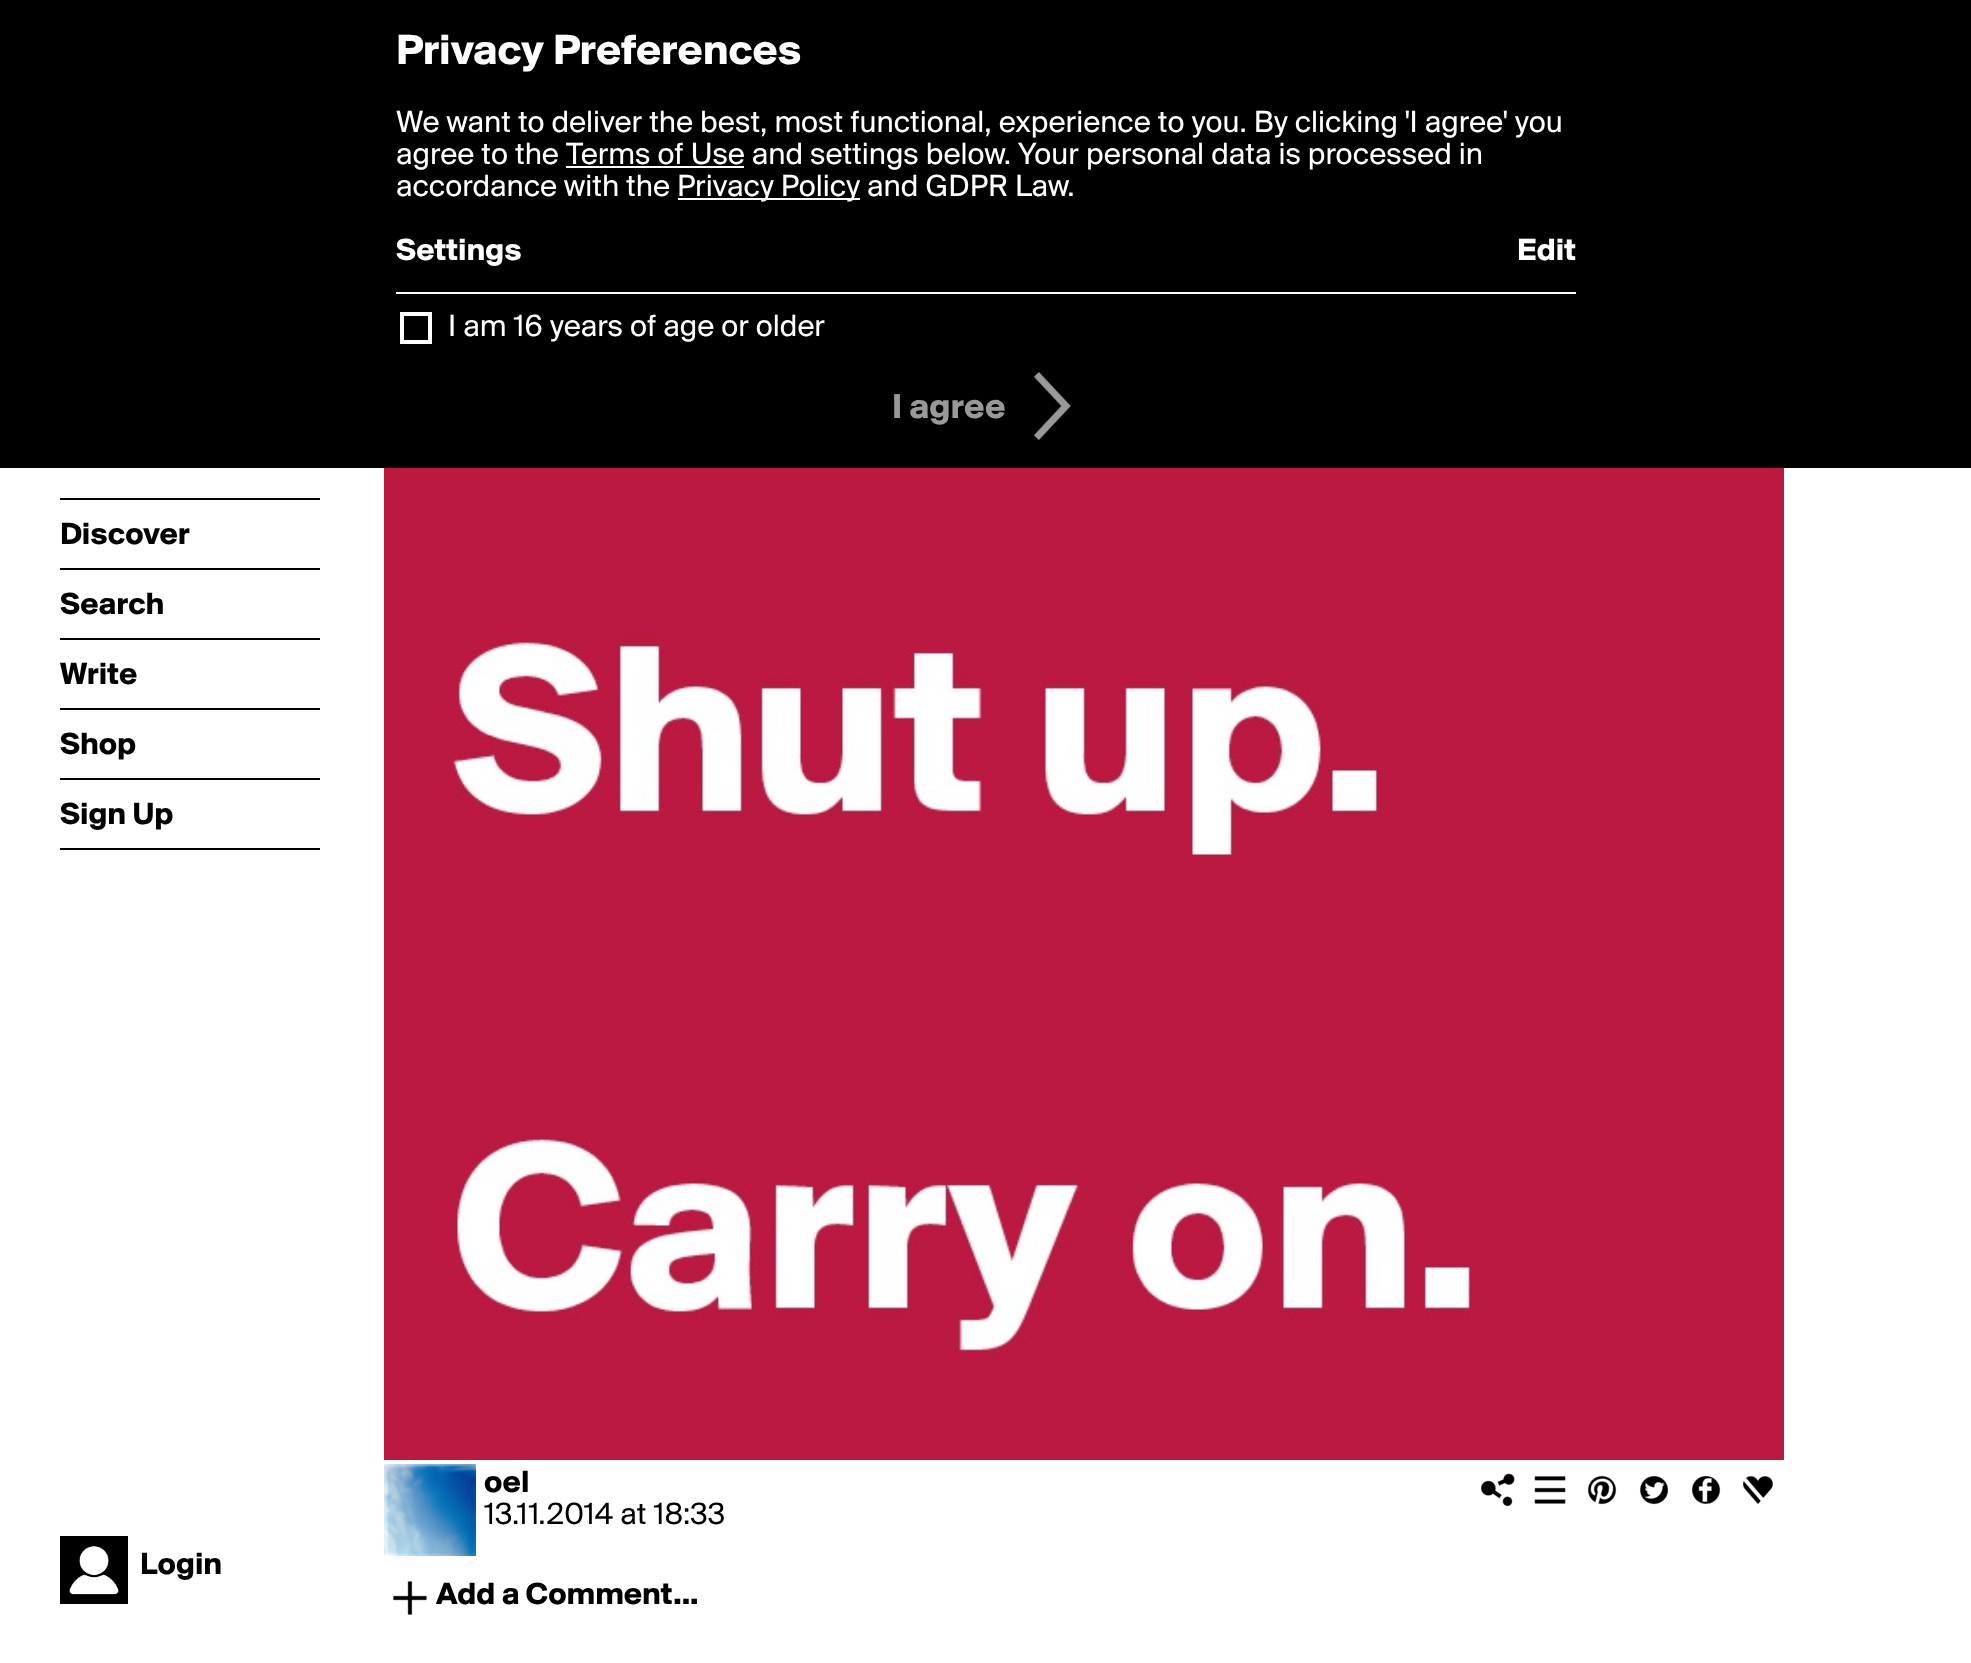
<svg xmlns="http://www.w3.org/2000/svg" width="1971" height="1663">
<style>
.a{font:bold 44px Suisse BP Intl;fill:#fff}
.b{font:32px Suisse BP Intl;fill:#fff}
.c{font:bold 32px Suisse BP Intl;fill:#fff}
.d{font:bold 36px Suisse BP Intl;fill:#999}
.e{font:bold 32px Suisse BP Intl;fill:#000}
.f{font:32px Suisse BP Intl;fill:#000}
</style>
<rect width="100%" height="100%" fill="#fff"/>
<path fill="#000" d="M0 0h1971v468H0z"/>
<path fill="#fff" d="M566 166h178v2H566z"/>
<path fill="#fff" d="M678 198h182v2H678z"/>
<path fill="#fff" d="M396 292h1180v2H396z"/>
<path fill="none" stroke="#fff" stroke-width="4" d="M402 314h28v28H402z"/>
<image href="1.png" x="1033" y="372" width="38" height="68"/>
<path fill="#000" d="M60 498h260v2H60z"/>
<path fill="#000" d="M60 568h260v2H60z"/>
<path fill="#000" d="M60 638h260v2H60z"/>
<path fill="#000" d="M60 708h260v2H60z"/>
<path fill="#000" d="M60 778h260v2H60z"/>
<path fill="#000" d="M60 848h260v2H60z"/>
<image href="2.png" x="60" y="1536" width="68" height="68"/>
<image href="3.png" x="384" y="468" width="1400" height="992"/>
<image href="4.png" x="384" y="1464" width="92" height="92"/>
<image href="5.png" x="1480" y="1473" width="35" height="34"/>
<image href="6.png" x="1534" y="1476" width="32" height="28"/>
<image href="7.png" x="1587" y="1475" width="30" height="30"/>
<image href="8.png" x="1639" y="1475" width="30" height="30"/>
<image href="9.png" x="1691" y="1475" width="30" height="30"/>
<image href="10.png" x="1742" y="1476" width="31" height="29"/>
<image href="11.png" x="393" y="1581" width="34" height="34"/>
<text class="a" x="396" y="64">Privacy Preferences</text>
<text class="b" x="396" y="132">We want to deliver the best, most functional, experience to you. By clicking 'I agree' you</text>
<text class="b" x="396" y="164">agree to the Terms of Use and settings below. Your personal data is processed in</text>
<text class="b" x="396" y="196">accordance with the</text>
<text class="b" x="677" y="196">Privacy Policy and GDPR Law.</text>
<text class="c" x="396" y="260">Settings</text>
<text class="c" x="1517" y="260">Edit</text>
<text class="b" x="448" y="336">I am 16 years of age or older</text>
<text class="d" x="892" y="418">I agree</text>
<text class="e" x="60" y="544">Discover</text>
<text class="e" x="60" y="614">Search</text>
<text class="e" x="60" y="684">Write</text>
<text class="e" x="60" y="754">Shop</text>
<text class="e" x="60" y="824">Sign Up</text>
<text class="e" x="140" y="1574">Login</text>
<text class="e" x="484" y="1492">oel</text>
<text class="f" x="484" y="1524">13.11.2014 at 18:33</text>
<text class="e" x="436" y="1604">Add a Comment...</text>
</svg>
